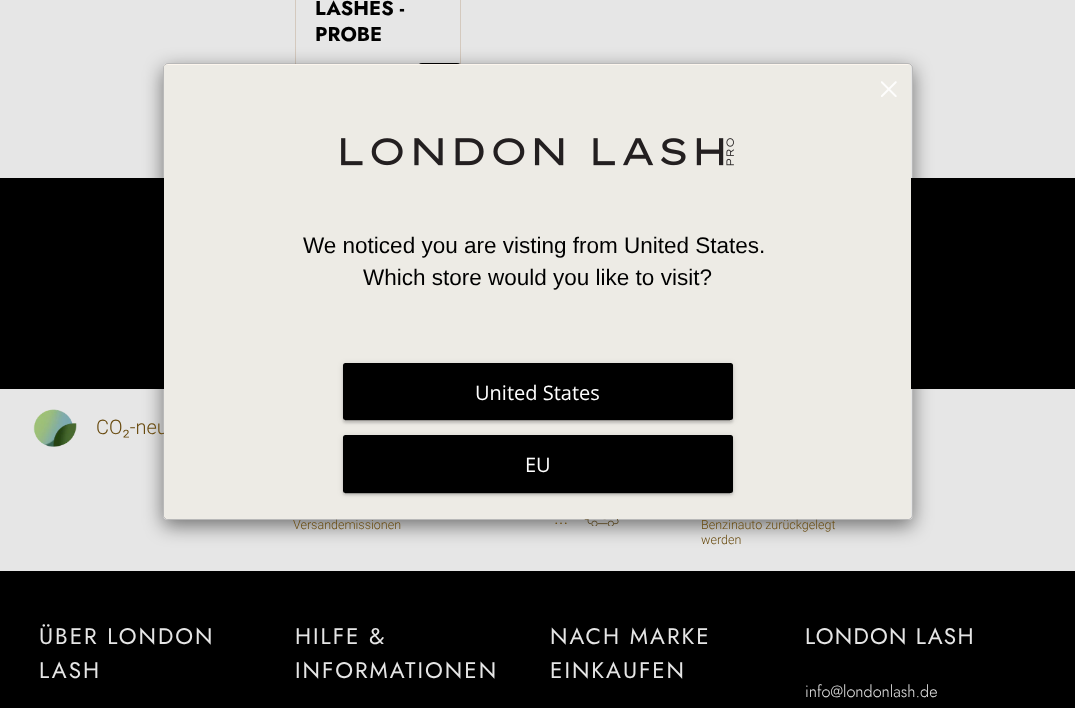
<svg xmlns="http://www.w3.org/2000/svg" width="1075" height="708">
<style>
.a{font:bold 20px Jost;fill:#000}
.b{font:300 20px Roboto;fill:#684a0e}
.c{font:300 12.5px Roboto;fill:#684a0e}
.d{font:20px Open Sans;fill:#fff}
.e{font:22.5px Liberation Sans;fill:#000}
.f{font:22.5px Jost;letter-spacing:2px;fill:#e6e6e6}
.g{font:22.5px Jost;letter-spacing:1.25px;fill:#e6e6e6}
.h{font:300 16.25px Jost;fill:#e6e6e6}
</style>
<defs>
<clipPath id="clip1"><path d="M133 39h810v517h-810zm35 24h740c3 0 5 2 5 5v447c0 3-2 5-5 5h-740c-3 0-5-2-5-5v-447c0-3 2-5 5-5z" clip-rule="evenodd"/></clipPath>
<clipPath id="clip2"><rect x="164" y="64" width="747" height="455" rx="4"/></clipPath>
</defs>
<rect width="100%" height="100%" fill="#e6e6e6"/>
<path fill="none" stroke="#d4c9be" d="M295.5 -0.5h165v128H295.5z"/>
<rect fill="#000" x="418" y="63" width="43" height="43" rx="4"/>
<path fill="#000" d="M0 178h1075v211H0z"/>
<image href="4.png" x="584" y="519" width="35" height="7"/>
<g clip-path="url(#clip1)">
<rect fill="#00000080" filter="blur(9.5px)" x="163" y="69" width="750" height="457" rx="5"/>
</g>
<image href="3.png" x="33" y="409" width="44" height="38"/>
<path fill="#000" d="M0 571h1075v137H0z"/>
<text class="a" x="315" y="15">LASHES -</text>
<text class="a" x="315" y="41">PROBE</text>
<text class="b" x="96" y="434">CO₂-neu</text>
<rect fill="#fdf6ee" x="164" y="64" width="747" height="455" rx="4"/>
<text class="c" x="293" y="529">Versandemissionen</text>
<text class="b" x="554" y="524">...</text>
<text class="c" x="701" y="529">Benzinauto zurückgelegt</text>
<rect fill="none" stroke="#00000033" x="163.5" y="63.5" width="749" height="456" rx="4.5"/>
<g clip-path="url(#clip2)">
<path fill="#edebe5" d="M164 65h747v270H164z"/>
</g>
<image href="1.png" x="881" y="81" width="16" height="16"/>
<path fill="#edebe5" d="M164 335h747v180c0 2-2 4-4 4h-739c-2 0-4-2-4-4z"/>
<rect fill="#00000024" filter="blur(1px)" x="343" y="438" width="390" height="57" rx="2.5"/>
<path fill="#00000033" filter="blur(0.5px)" d="M345 441h385v53H345z"/>
<rect fill="#0000001f" filter="blur(3px)" x="343" y="436" width="390" height="58" rx="2.5"/>
<rect fill="#000" x="343" y="435" width="390" height="58" rx="2.5"/>
<text class="d" x="525" y="472">EU</text>
<rect fill="#00000024" filter="blur(1px)" x="343" y="365" width="390" height="58" rx="2.5"/>
<path fill="#00000033" filter="blur(0.5px)" d="M345 369h385v52H345z"/>
<rect fill="#0000001f" filter="blur(3px)" x="343" y="364" width="390" height="57" rx="2.5"/>
<rect fill="#000" x="343" y="363" width="390" height="57" rx="2.5"/>
<text class="d" x="475" y="400">United States</text>
<text class="e" x="363" y="285">Which store would you like to visit?</text>
<text class="e" x="303" y="253">We noticed you are visting from United States.</text>
<image href="2.png" x="341" y="138" width="393" height="28"/>
<text class="c" x="701" y="544">werden</text>
<text class="f" x="39" y="644">ÜBER LONDON</text>
<text class="f" x="39" y="678">LASH</text>
<text class="f" x="295" y="644">HILFE &amp;</text>
<text class="f" x="295" y="678">INFORMATIONEN</text>
<text class="f" x="550" y="644">NACH MARKE</text>
<text class="f" x="550" y="678">EINKAUFEN</text>
<text class="g" x="805" y="644">LONDON LASH</text>
<text class="h" x="805" y="697">info@londonlash.de</text>
</svg>
